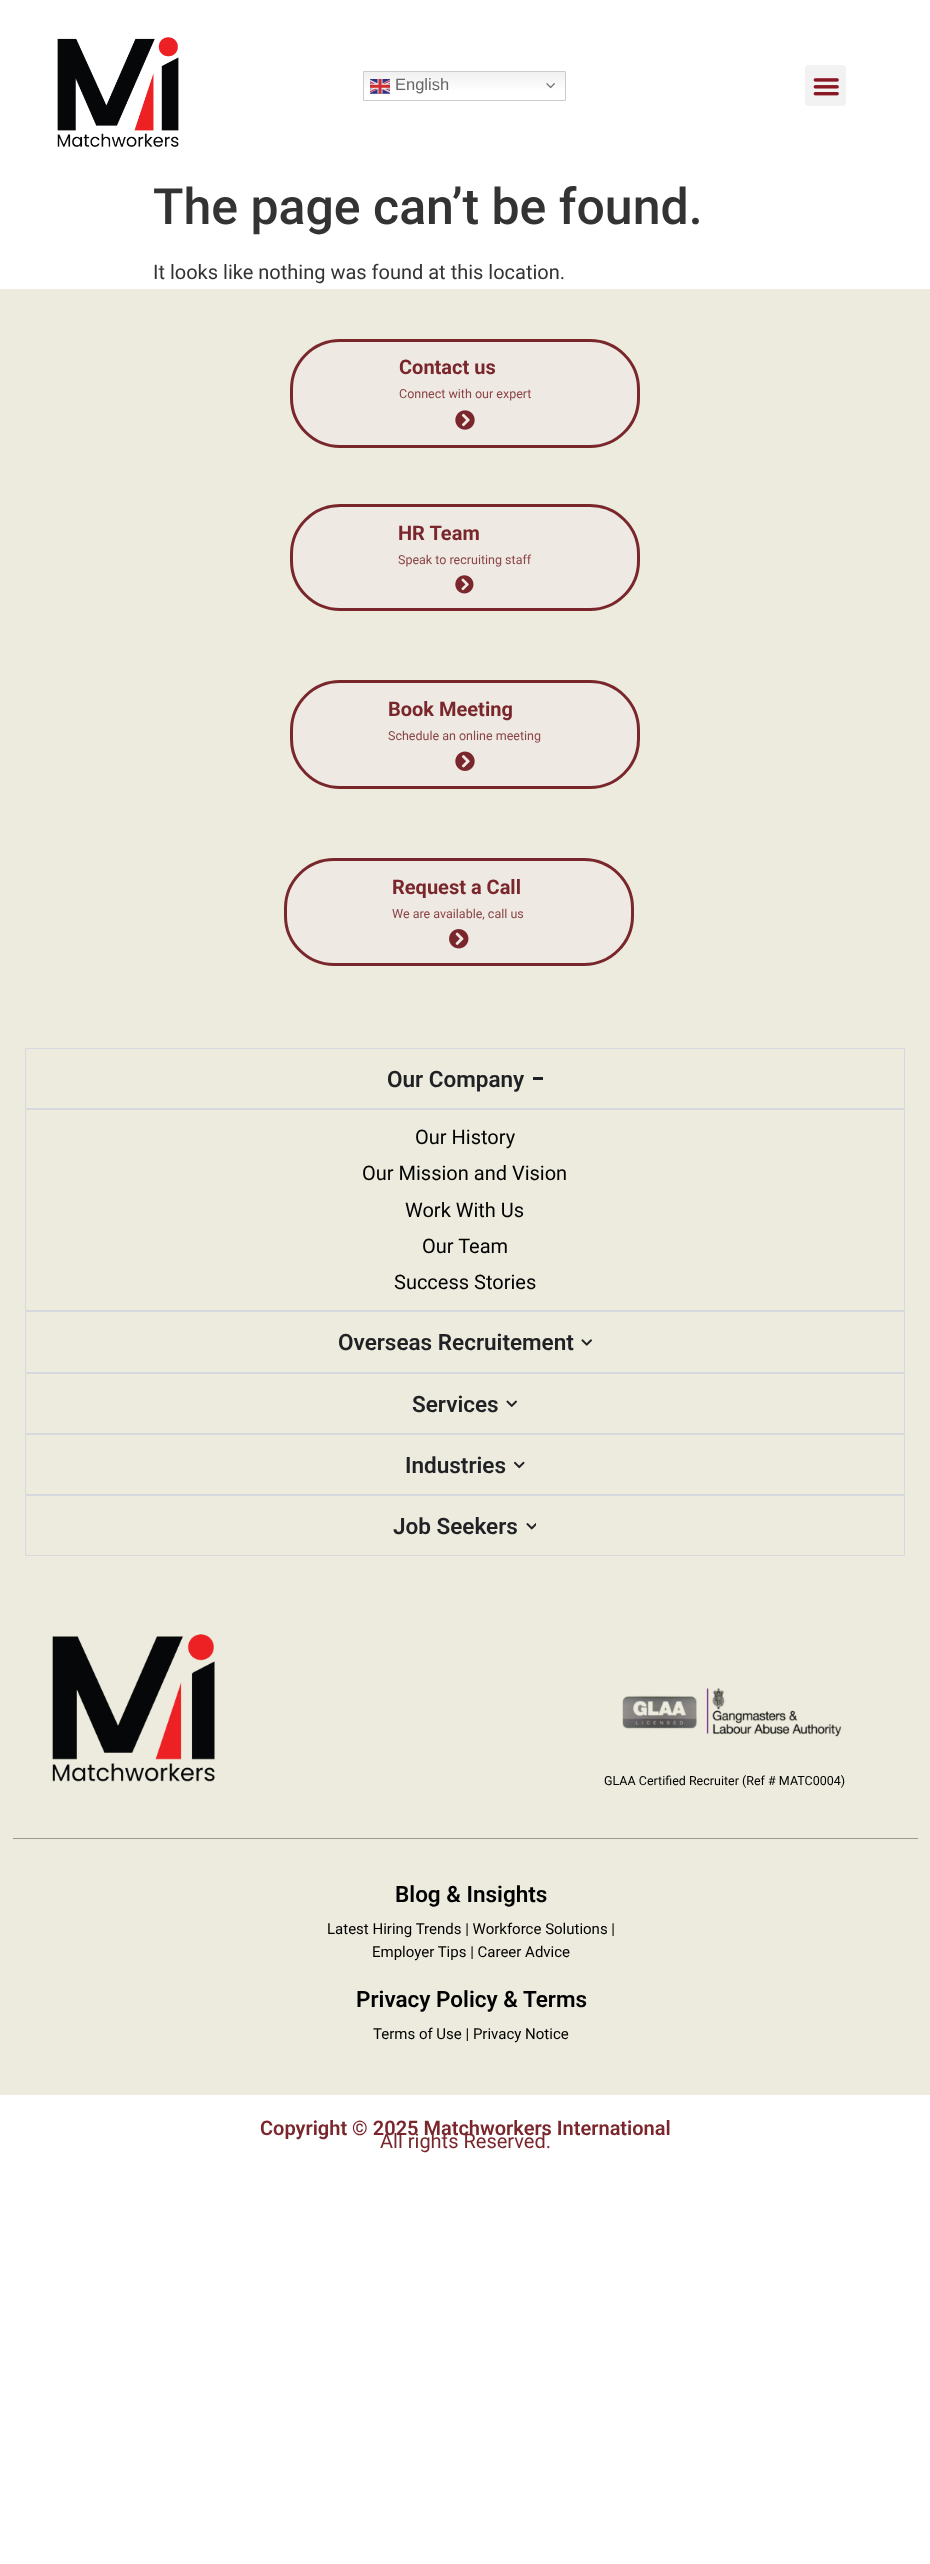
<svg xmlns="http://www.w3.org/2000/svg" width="930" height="2564">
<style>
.a{font:16.5px Liberation Sans;fill:#666}
.b{font:500 50px Roboto;fill:#333}
.c{font:20px Roboto;fill:#333}
.d{font:bold 20px Roboto;fill:#79272c}
.e{font:12.5px Roboto;fill:#8b4447}
.f{font:600 22.5px Roboto;fill:#1f2124}
.g{font:20px Roboto;fill:#000}
.h{font:12.5px Roboto;fill:#000}
.i{font:600 22.5px Roboto;fill:#000}
.j{font:15px Roboto;fill:#000}
.k{font:600 20px Roboto;fill:#79272c}
.l{font:20px Roboto;fill:#79272c}
</style>
<defs>
<linearGradient id="g1" gradientUnits="userSpaceOnUse" x1="464" y1="71" x2="464" y2="101"><stop offset="0" stop-color="#efefef"/><stop offset="0.7" stop-color="#fff"/></linearGradient>
</defs>
<rect width="100%" height="100%" fill="#fff"/>
<image href="1.png" x="57" y="37" width="122" height="110"/>
<path fill="url(#g1)" d="M364 72h201v17H364z"/>
<path fill="none" stroke="#ccc" d="M363.5 71.5h202v29H363.5z"/>
<image href="2.png" x="370" y="78" width="20" height="16"/>
<image href="3.png" x="546" y="83" width="9" height="6"/>
<rect fill="#f2f2f2" x="805" y="65" width="41" height="41" rx="4"/>
<image href="4.png" x="813" y="78" width="26" height="18"/>
<path fill="#edebdd" d="M0 289h930v1806H0z"/>
<rect fill="#eee9e2" stroke="#79272c" stroke-width="3" x="291.5" y="340.5" width="347" height="106" rx="48.5"/>
<image href="5.png" x="455" y="410" width="20" height="20"/>
<rect fill="#eee9e2" stroke="#79272c" stroke-width="3" x="291.5" y="505.5" width="347" height="104" rx="48.5"/>
<image href="6.png" x="455" y="575" width="19" height="19"/>
<rect fill="#eee9e2" stroke="#79272c" stroke-width="3" x="291.5" y="681.5" width="347" height="106" rx="48.5"/>
<image href="7.png" x="455" y="751" width="20" height="20"/>
<rect fill="#eee9e2" stroke="#79272c" stroke-width="3" x="285.5" y="859.5" width="347" height="105" rx="48.5"/>
<image href="8.png" x="449" y="929" width="20" height="20"/>
<path fill="none" stroke="#d5d8dc" d="M25.5 1048.5h879v60H25.5z"/>
<path fill="#1f2124" d="M533 1077h10v3H533z"/>
<path fill="none" stroke="#d5d8dc" d="M25.5 1109.5h879v201H25.5z"/>
<path fill="none" stroke="#d5d8dc" d="M25.5 1311.5h879v61H25.5z"/>
<image href="9.png" x="581" y="1339" width="11" height="7"/>
<path fill="none" stroke="#d5d8dc" d="M25.5 1373.5h879v60H25.5z"/>
<image href="10.png" x="506" y="1400" width="11" height="7"/>
<path fill="none" stroke="#d5d8dc" d="M25.5 1434.5h879v60H25.5z"/>
<image href="11.png" x="514" y="1461" width="11" height="8"/>
<path fill="none" stroke="#d5d8dc" d="M25.5 1495.5h879v60H25.5z"/>
<image href="12.png" x="526" y="1523" width="10" height="7"/>
<image href="13.png" x="52" y="1634" width="163" height="148"/>
<image href="14.png" x="622" y="1688" width="220" height="49"/>
<path fill="#9a9990" d="M13 1838h905v1H13z"/>
<text class="a" x="395" y="90">English</text>
<text class="b" x="153" y="224">The page can’t be found.</text>
<text class="c" x="153" y="279">It looks like nothing was found at this location.</text>
<text class="d" x="399" y="374">Contact us</text>
<text class="e" x="399" y="398">Connect with our expert</text>
<text class="d" x="398" y="540">HR Team</text>
<text class="e" x="398" y="564">Speak to recruiting staff</text>
<text class="d" x="388" y="716">Book Meeting</text>
<text class="e" x="388" y="740">Schedule an online meeting</text>
<text class="d" x="392" y="894">Request a Call</text>
<text class="e" x="392" y="918">We are available, call us</text>
<text class="f" x="387" y="1087">Our Company</text>
<text class="g" x="415" y="1144">Our History</text>
<text class="g" x="362" y="1180">Our Mission and Vision</text>
<text class="g" x="405" y="1217">Work With Us</text>
<text class="g" x="422" y="1253">Our Team</text>
<text class="g" x="394" y="1289">Success Stories</text>
<text class="f" x="338" y="1350">Overseas Recruitement</text>
<text class="f" x="412" y="1412">Services</text>
<text class="f" x="405" y="1473">Industries</text>
<text class="f" x="393" y="1534">Job Seekers</text>
<text class="h" x="604" y="1785">GLAA Certified Recruiter (Ref # MATC0004)</text>
<text class="i" x="395" y="1902">Blog &amp; Insights</text>
<text class="j" x="327" y="1934">Latest Hiring Trends | Workforce Solutions |</text>
<text class="j" x="372" y="1957">Employer Tips | Career Advice</text>
<text class="i" x="356" y="2007">Privacy Policy &amp; Terms</text>
<text class="j" x="373" y="2039">Terms of Use | Privacy Notice</text>
<text class="k" x="260" y="2135">Copyright © 2025 Matchworkers International</text>
<text class="l" x="380" y="2148">All rights Reserved.</text>
</svg>
